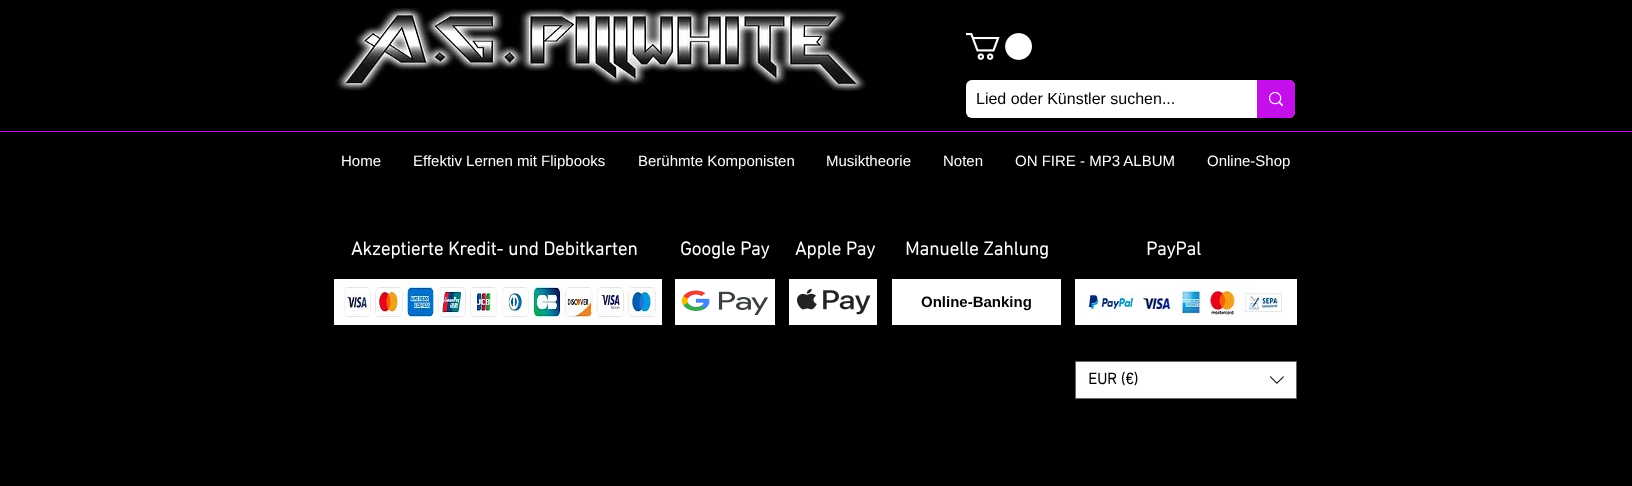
<svg xmlns="http://www.w3.org/2000/svg" width="1632" height="486">
<style>
.a{font:16px Liberation Sans;fill:#000}
.b{font:15px Liberation Sans;fill:#fff}
.c{font:bold 19px 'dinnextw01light';fill:#fff}
.d{font:bold 15px Liberation Sans;fill:#000}
.e{font:bold 16px 'dinnextw01light';fill:#000}
</style>
<rect width="100%" height="100%" fill="#000"/>
<image href="1.png" x="335" y="8" width="532" height="83"/>
<image href="2.png" x="966" y="33" width="66" height="27"/>
<rect fill="#fff" x="966" y="80" width="329" height="38" rx="6"/>
<path fill="#c50feb" d="M1257 80h32c3.5 0 6 2.5 6 6v26c0 3.5-2.5 6-6 6h-32z"/>
<image href="3.png" x="1269" y="92" width="14" height="14"/>
<path fill="#c50feb" d="M0 131h1632v1H0z"/>
<image href="4.png" x="334" y="279" width="328" height="46"/>
<image href="5.png" x="675" y="279" width="100" height="46"/>
<image href="6.png" x="789" y="279" width="88" height="46"/>
<path fill="#fff" d="M892 279h169v46H892z"/>
<image href="7.png" x="1075" y="279" width="222" height="46"/>
<path fill="#fff" stroke="#666" d="M1075.5 361.5h221v37H1075.5z"/>
<image href="8.png" x="1269" y="376" width="15" height="8"/>
<text class="a" x="976" y="104">Lied oder Künstler suchen...</text>
<text class="b" x="341" y="166">Home</text>
<text class="b" x="413" y="166">Effektiv Lernen mit Flipbooks</text>
<text class="b" x="638" y="166">Berühmte Komponisten</text>
<text class="b" x="826" y="166">Musiktheorie</text>
<text class="b" x="943" y="166">Noten</text>
<text class="b" x="1015" y="166">ON FIRE - MP3 ALBUM</text>
<text class="b" x="1207" y="166">Online-Shop</text>
<text class="c" x="351" y="255">Akzeptierte Kredit- und Debitkarten</text>
<text class="c" x="680" y="255">Google Pay</text>
<text class="c" x="795" y="255">Apple Pay</text>
<text class="c" x="905" y="255">Manuelle Zahlung</text>
<text class="c" x="1146" y="255">PayPal</text>
<text class="d" x="921" y="307">Online-Banking</text>
<text class="e" x="1088" y="384">EUR (€)</text>
</svg>
